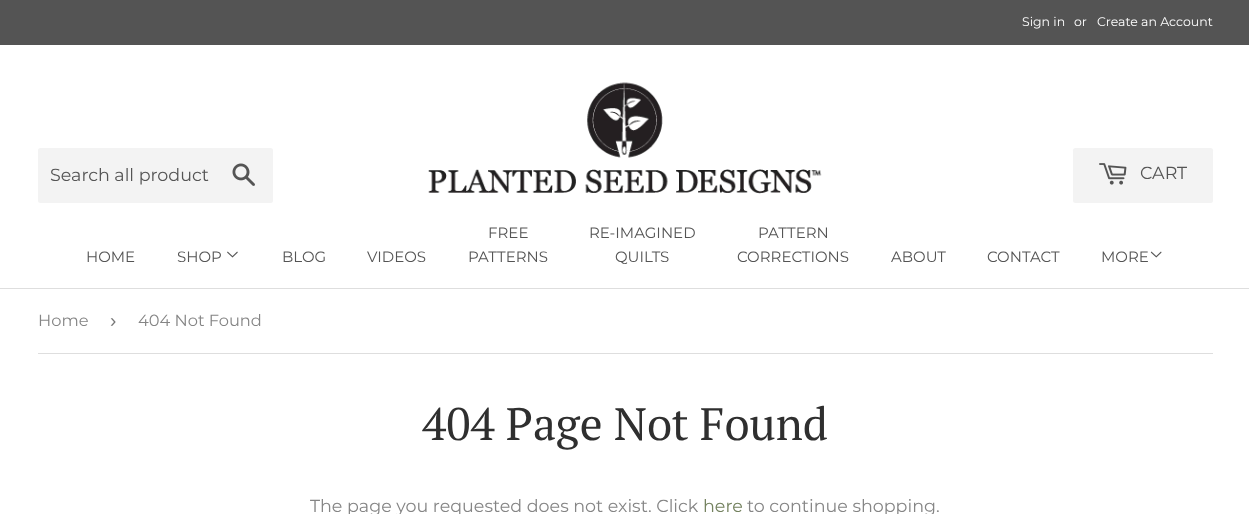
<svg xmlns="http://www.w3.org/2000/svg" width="1249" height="514">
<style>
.a{font:12.5px Montserrat;fill:#fff}
.b{font:17.5px Montserrat;fill:#545454}
.c{font:15px Montserrat;fill:#545454}
.d{font:16.25px Montserrat;fill:#858585}
.e{font:19px Liberation Sans;fill:#767676}
.f{font:45.5px PT Serif;fill:#2f2f2f}
.g{font:17.5px Montserrat;fill:#858585}
.h{font:17.5px Montserrat;fill:#73815e}
</style>
<rect width="100%" height="100%" fill="#fff"/>
<path fill="#545454" d="M0 0h1249v45H0z"/>
<rect fill="#f3f3f3" x="38" y="148" width="235" height="55" rx="2.5"/>
<image href="1.png" x="232" y="163" width="23" height="23"/>
<image href="2.png" x="428" y="82" width="394" height="112"/>
<rect fill="#f3f3f3" x="1073" y="148" width="140" height="55" rx="2.5"/>
<image href="3.png" x="1099" y="163" width="28" height="22"/>
<path fill="#dedede" d="M0 288h1249v1H0z"/>
<image href="4.png" x="227" y="251" width="11" height="7"/>
<image href="5.png" x="1150" y="251" width="12" height="7"/>
<path fill="#dedede" d="M38 353h1175v1H38z"/>
<text class="a" x="1022" y="26">Sign in</text>
<text class="a" x="1074" y="26">or</text>
<text class="a" x="1097" y="26">Create an Account</text>
<text class="b" x="50" y="181">Search all product</text>
<text class="b" x="1140" y="179">CART</text>
<text class="c" x="86" y="262">HOME</text>
<text class="c" x="177" y="262">SHOP</text>
<text class="c" x="282" y="262">BLOG</text>
<text class="c" x="367" y="262">VIDEOS</text>
<text class="c" x="488" y="238">FREE</text>
<text class="c" x="468" y="262">PATTERNS</text>
<text class="c" x="589" y="238">RE-IMAGINED</text>
<text class="c" x="615" y="262">QUILTS</text>
<text class="c" x="758" y="238">PATTERN</text>
<text class="c" x="737" y="262">CORRECTIONS</text>
<text class="c" x="891" y="262">ABOUT</text>
<text class="c" x="987" y="262">CONTACT</text>
<text class="c" x="1101" y="262">MORE</text>
<text class="d" x="38" y="326">Home</text>
<text class="e" x="110" y="327">›</text>
<text class="d" x="138" y="326">404 Not Found</text>
<text class="f" x="422" y="440">404 Page Not Found</text>
<text class="g" x="310" y="512">The page you requested does not exist. Click</text>
<text class="h" x="703" y="512">here</text>
<text class="g" x="747" y="512">to continue shopping.</text>
</svg>
